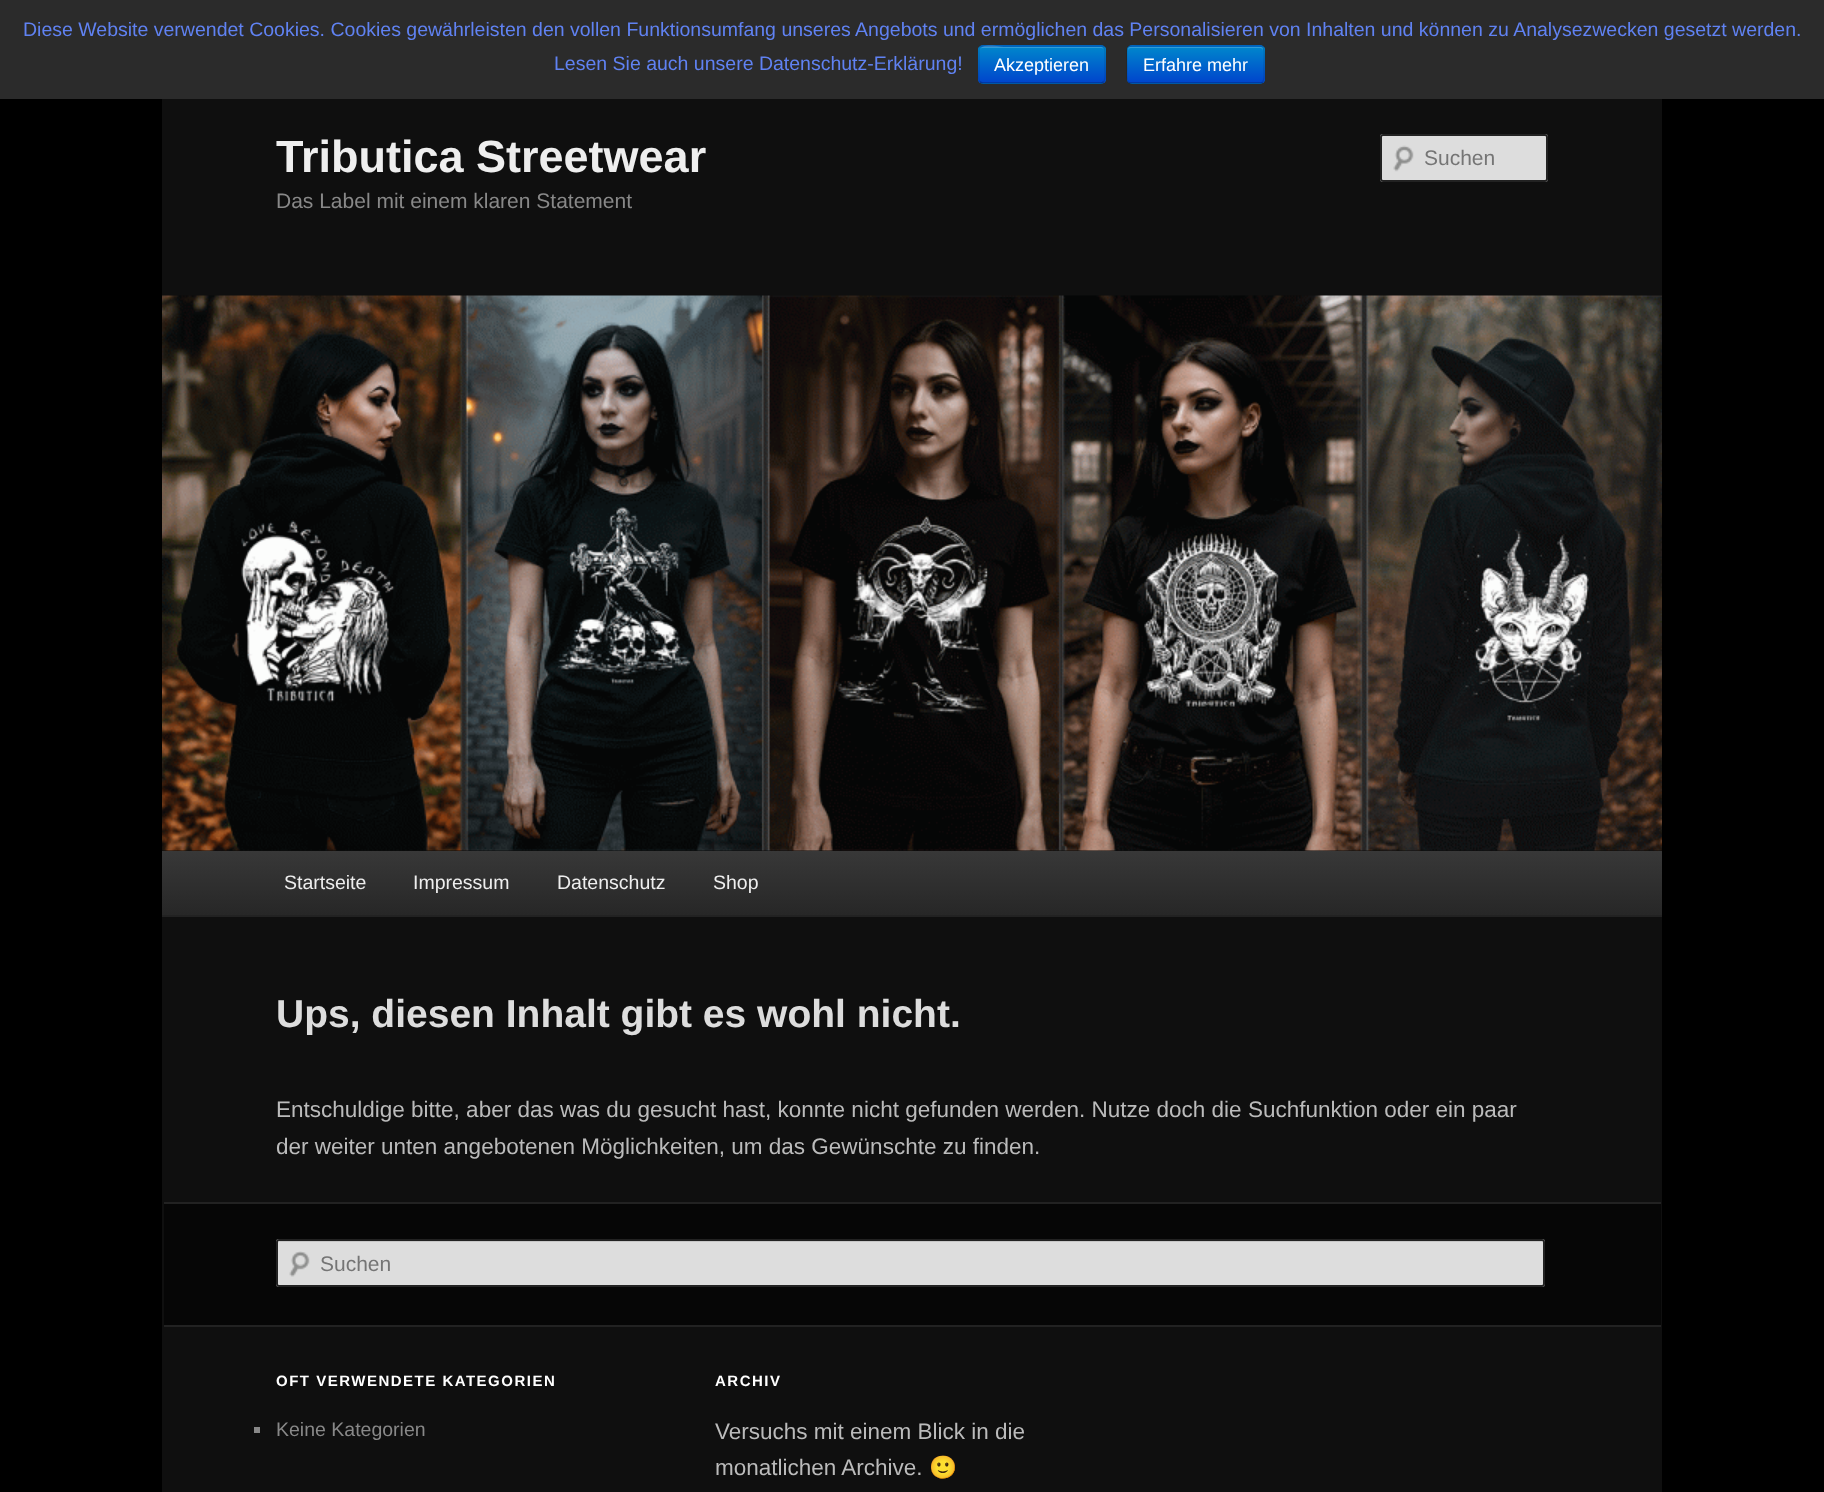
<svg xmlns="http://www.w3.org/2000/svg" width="1824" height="1492">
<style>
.a{font:19.5px Liberation Sans;fill:#6082f2}
.b{font:18px Liberation Sans;fill:#fff}
.c{font:bold 45px Liberation Sans;fill:#eee}
.d{font:21px Liberation Sans;fill:#888}
.e{font:21px Liberation Sans;fill:#757575}
.f{font:19.5px Liberation Sans;fill:#eee}
.g{font:bold 39px Liberation Sans;fill:#ddd}
.h{font:22.5px Liberation Sans;fill:#bbb}
.i{font:bold 15px Liberation Sans;letter-spacing:1.5px;fill:#fff}
.j{font:19.5px Liberation Sans;fill:#888}
.k{font:22.5px Noto Color Emoji;fill:#bbb}
</style>
<defs>
<clipPath id="clip1"><rect x="978" y="45" width="128" height="39" rx="5"/></clipPath>
<linearGradient id="g1" gradientUnits="userSpaceOnUse" x1="1042" y1="46" x2="1042" y2="83"><stop offset="0" stop-color="#08c"/><stop offset="1" stop-color="#04c"/></linearGradient>
<clipPath id="clip2"><rect x="1127" y="45" width="138" height="39" rx="5"/></clipPath>
<linearGradient id="g2" gradientUnits="userSpaceOnUse" x1="1196" y1="46" x2="1196" y2="83"><stop offset="0" stop-color="#08c"/><stop offset="1" stop-color="#04c"/></linearGradient>
<linearGradient id="g3" gradientUnits="userSpaceOnUse" x1="912" y1="850" x2="912" y2="915"><stop offset="0" stop-color="#383838"/><stop offset="1" stop-color="#272727"/></linearGradient>
</defs>
<rect width="100%" height="100%" fill="#000"/>
<path fill="#2b2b2b" d="M0 0h1824v99H0z"/>
<rect fill="#006dcc" x="978" y="45" width="128" height="39" rx="5"/>
<g clip-path="url(#clip1)">
<path fill="url(#g1)" d="M978 47h128v36H978z"/>
</g>
<path fill="#ffffff33" d="M982 48h119c2 0 3 1 3 3c0-2-1-4-3-4h-98c-1 0-23-5-23 4c0-2 1-3 2-3z"/>
<path fill="none" stroke="#00000040" stroke-width="1.5" d="M1103.5 82l-2 1h-99.5h-19.5l-2.5-1"/>
<path fill="none" stroke="#0000001a" stroke-width="1.5" d="M980 82c-2.5-2.5-1-10-1-12.5v-15c0-3-1-8.5 3.5-8.5h118.5c4.5 0 4 5.5 4 8.5v15c0 2.5 1 10-1.5 12.5"/>
<rect fill="#006dcc" x="1127" y="45" width="138" height="39" rx="5"/>
<g clip-path="url(#clip2)">
<path fill="url(#g2)" d="M1127 47h138v36H1127z"/>
</g>
<path fill="#339dd6" d="M1131 48h129c2 0 3 1 3 3c0-2 0-4-2-4h-131c-2 0-2 2-2 4c0-2 1-3 3-3z"/>
<path fill="none" stroke="#00000040" stroke-width="1.5" d="M1262.5 82c-.5 1-1.5 1-2.5 1h-129c-1 0-2 0-2.5-1"/>
<path fill="none" stroke="#0000001a" stroke-width="1.5" d="M1128.5 82c-2.5-2.5-1.5-10-1.5-12.5c0-29-5-23.5 25.5-23.5h86c30.5 0 25.5-5.5 25.5 23.5c0 2.5 1 10-1.5 12.5"/>
<path fill="#0f0f0f" d="M162 99h1500v1393H162z"/>
<rect fill="#ddd" x="1380" y="134" width="168" height="48" rx="3"/>
<image href="1.png" x="1393" y="145" width="21" height="27"/>
<rect fill="none" stroke="#222" stroke-width="2" x="1381" y="135" width="166" height="46" rx="2"/>
<image href="2.png" x="162" y="295" width="1500" height="556"/>
<path fill="url(#g3)" d="M162 851h1500v64H162z"/>
<path fill="#222" d="M162 915h1500v2H162z"/>
<path fill="#060606" d="M164 1204h1497v121H164z"/>
<path fill="#222" d="M164 1202h1497v2H164z"/>
<path fill="#222" d="M164 1325h1497v2H164z"/>
<rect fill="#ddd" x="276" y="1239" width="1269" height="48" rx="3"/>
<image href="3.png" x="289" y="1251" width="21" height="26"/>
<path fill="#c7c7c7" d="M279 1242h1263c1 0 2 1 2 2v-2l-2-1h-1262l-2 1v2c0-1 0-2 1-2z"/>
<rect fill="none" stroke="#222" stroke-width="2" x="277" y="1240" width="1267" height="46" rx="2"/>
<path fill="#888" d="M254 1427h6v6H254z"/>
<text class="a" x="23" y="36">Diese Website verwendet Cookies. Cookies gewährleisten den vollen Funktionsumfang unseres Angebots und ermöglichen das Personalisieren von Inhalten und können zu Analysezwecken gesetzt werden.</text>
<text class="a" x="554" y="70">Lesen Sie auch unsere Datenschutz-Erklärung!</text>
<text class="b" x="994" y="71">Akzeptieren</text>
<text class="b" x="1143" y="71">Erfahre mehr</text>
<text class="c" x="276" y="172">Tributica Streetwear</text>
<text class="d" x="276" y="208">Das Label mit einem klaren Statement</text>
<text class="e" x="1424" y="165">Suchen</text>
<text class="f" x="284" y="889">Startseite</text>
<text class="f" x="413" y="889">Impressum</text>
<text class="f" x="557" y="889">Datenschutz</text>
<text class="f" x="713" y="889">Shop</text>
<text class="g" x="276" y="1027">Ups, diesen Inhalt gibt es wohl nicht.</text>
<text class="h" x="276" y="1117">Entschuldige bitte, aber das was du gesucht hast, konnte nicht gefunden werden. Nutze doch die Suchfunktion oder ein paar</text>
<text class="h" x="276" y="1154">der weiter unten angebotenen Möglichkeiten, um das Gewünschte zu finden.</text>
<text class="e" x="320" y="1271">Suchen</text>
<text class="i" x="276" y="1386">OFT VERWENDETE KATEGORIEN</text>
<text class="j" x="276" y="1436">Keine Kategorien</text>
<text class="i" x="715" y="1386">ARCHIV</text>
<text class="h" x="715" y="1439">Versuchs mit einem Blick in die</text>
<text class="h" x="715" y="1475">monatlichen Archive.</text>
<text class="k" x="929" y="1475">🙂</text>
</svg>
